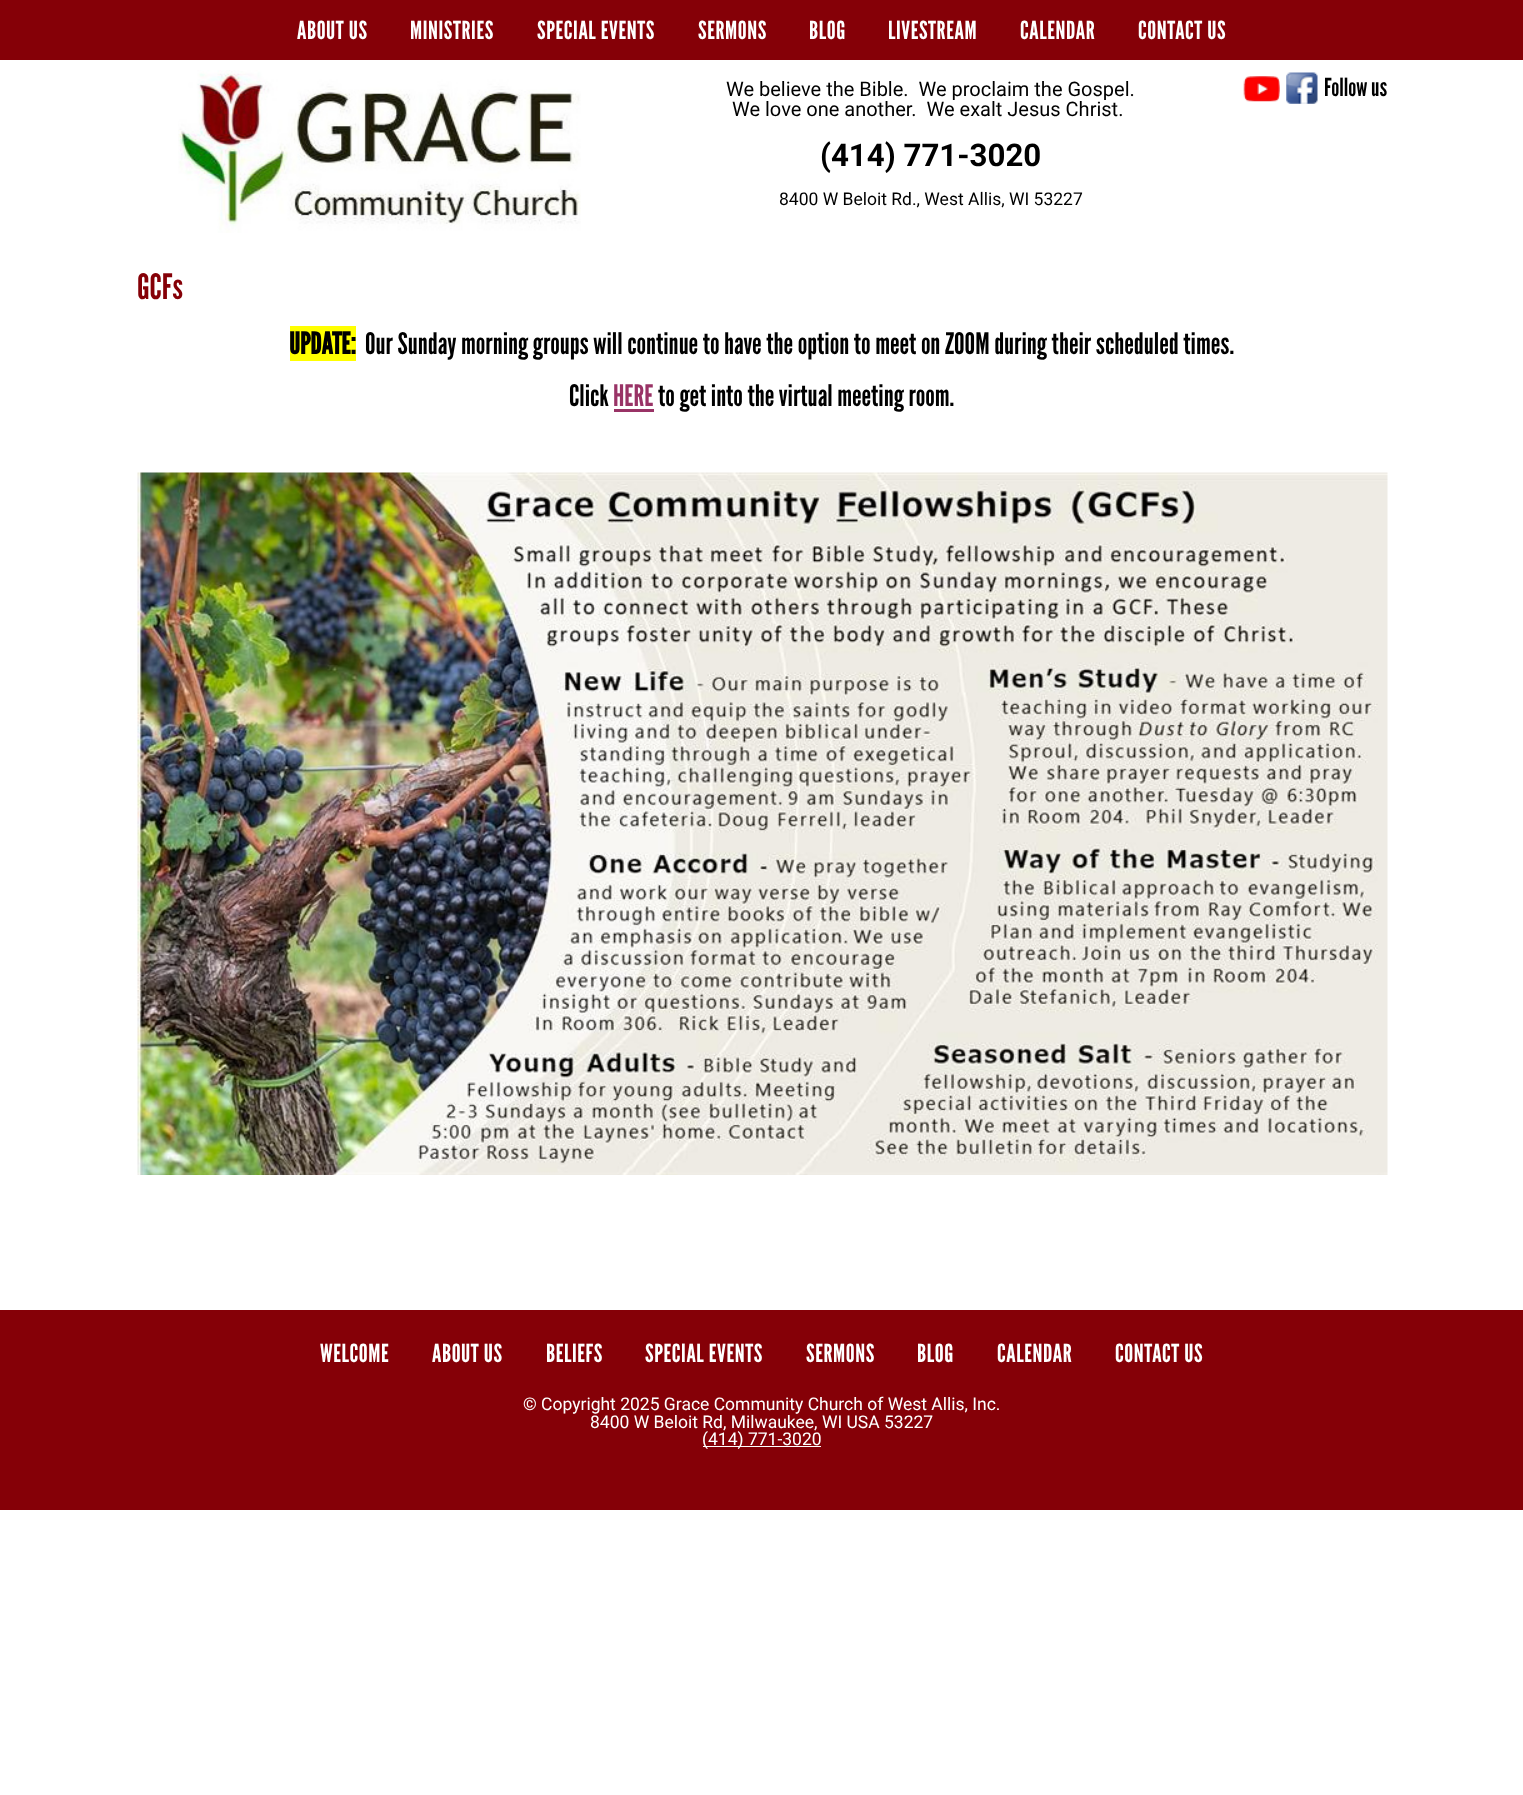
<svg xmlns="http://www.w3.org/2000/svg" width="1523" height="1795">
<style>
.a{font:25px League Gothic;letter-spacing:0.6px;fill:#fff}
.b{font:20px Roboto;fill:#000}
.c{font:bold 31.25px Roboto;fill:#000}
.d{font:17.5px Roboto;fill:#000}
.e{font:25px League Gothic;fill:#000}
.f{font:35px League Gothic;fill:#850007}
.g{font:bold 29.75px League Gothic;fill:#000}
.h{font:29.75px League Gothic;fill:#000}
.i{font:29.75px League Gothic;fill:#936}
.j{font:17.5px Roboto;fill:#fff}
</style>
<rect width="100%" height="100%" fill="#fff"/>
<path fill="#850007" d="M0 0h1523v60H0z"/>
<image href="1.png" x="178" y="70" width="403" height="163"/>
<image href="2.png" x="1243" y="76" width="37" height="26"/>
<image href="3.png" x="1286" y="72" width="32" height="32"/>
<path fill="#ff0" d="M290 326h66v35H290z"/>
<path fill="#936" d="M614 409h40v3H614z"/>
<image href="4.png" x="137" y="472" width="1251" height="703"/>
<path fill="#850007" d="M0 1310h1523v200H0z"/>
<path fill="#fff" d="M703 1446h118v1H703z"/>
<text class="a" x="297" y="39">ABOUT US</text>
<text class="a" x="410" y="39">MINISTRIES</text>
<text class="a" x="537" y="39">SPECIAL EVENTS</text>
<text class="a" x="698" y="39">SERMONS</text>
<text class="a" x="809" y="39">BLOG</text>
<text class="a" x="888" y="39">LIVESTREAM</text>
<text class="a" x="1020" y="39">CALENDAR</text>
<text class="a" x="1138" y="39">CONTACT US</text>
<text class="b" xml:space="preserve" x="726" y="96">We believe the Bible.  We proclaim the Gospel.</text>
<text class="b" xml:space="preserve" x="732" y="116">We love one another.  We exalt Jesus Christ.</text>
<text class="c" x="820" y="166">(414) 771-3020</text>
<text class="d" x="779" y="205">8400 W Beloit Rd., West Allis, WI 53227</text>
<text class="e" x="1324" y="96">Follow us</text>
<text class="f" x="137" y="299">GCFs</text>
<text class="g" x="289" y="354">UPDATE:</text>
<text class="h" x="365" y="354">Our Sunday morning groups will continue to have the option to meet on ZOOM during their scheduled times.</text>
<text class="h" x="569" y="406">Click</text>
<text class="i" x="613" y="406">HERE</text>
<text class="h" x="658" y="406">to get into the virtual meeting room.</text>
<text class="a" x="320" y="1362">WELCOME</text>
<text class="a" x="432" y="1362">ABOUT US</text>
<text class="a" x="546" y="1362">BELIEFS</text>
<text class="a" x="645" y="1362">SPECIAL EVENTS</text>
<text class="a" x="806" y="1362">SERMONS</text>
<text class="a" x="917" y="1362">BLOG</text>
<text class="a" x="997" y="1362">CALENDAR</text>
<text class="a" x="1115" y="1362">CONTACT US</text>
<text class="j" x="523" y="1410">© Copyright 2025 Grace Community Church of West Allis, Inc.</text>
<text class="j" x="590" y="1428">8400 W Beloit Rd, Milwaukee, WI USA 53227</text>
<text class="j" x="702" y="1445">(414) 771-3020</text>
</svg>
